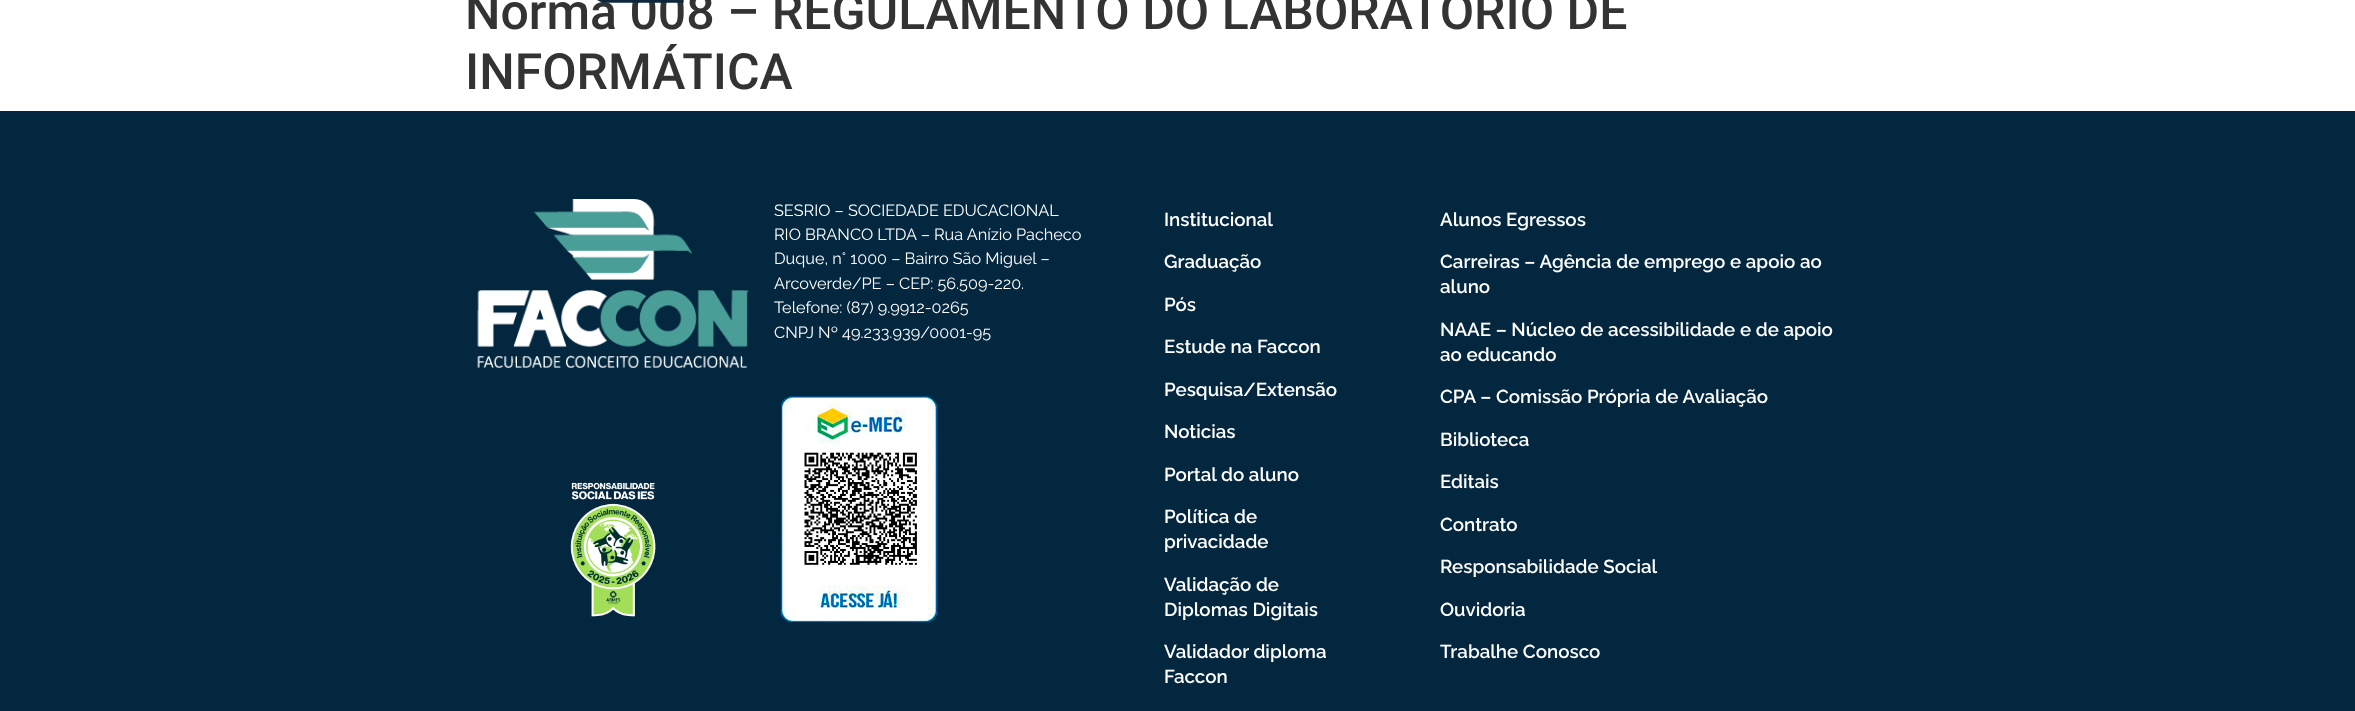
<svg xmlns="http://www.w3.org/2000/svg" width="2355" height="711">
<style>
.a{font:500 50px Roboto;fill:#333}
.b{font:16.25px Raleway;fill:#fff}
.c{font:600 18.75px Raleway;fill:#fff}
</style>
<rect width="100%" height="100%" fill="#fff"/>
<path fill="#03273f" d="M0 111h2355v600H0z"/>
<image href="2.png" x="477" y="199" width="272" height="169"/>
<image href="3.png" x="570" y="482" width="86" height="135"/>
<image href="4.png" x="780" y="396" width="158" height="227"/>
<text class="a" x="465" y="29">Norma 008 – REGULAMENTO DO LABORATÓRIO DE</text>
<text class="a" x="465" y="89">INFORMÁTICA</text>
<image href="1.png" x="597" y="0" width="87" height="3"/>
<text class="b" x="774" y="216">SESRIO – SOCIEDADE EDUCACIONAL</text>
<text class="b" x="774" y="240">RIO BRANCO LTDA – Rua Anízio Pacheco</text>
<text class="b" x="774" y="264">Duque, n° 1000 – Bairro São Miguel –</text>
<text class="b" x="774" y="289">Arcoverde/PE – CEP: 56.509-220.</text>
<text class="b" x="774" y="313">Telefone: (87) 9.9912-0265</text>
<text class="b" x="774" y="338">CNPJ Nº 49.233.939/0001-95</text>
<text class="c" x="1164" y="226">Institucional</text>
<text class="c" x="1164" y="268">Graduação</text>
<text class="c" x="1164" y="311">Pós</text>
<text class="c" x="1164" y="353">Estude na Faccon</text>
<text class="c" x="1164" y="396">Pesquisa/Extensão</text>
<text class="c" x="1164" y="438">Noticias</text>
<text class="c" x="1164" y="481">Portal do aluno</text>
<text class="c" x="1164" y="523">Política de</text>
<text class="c" x="1164" y="548">privacidade</text>
<text class="c" x="1164" y="591">Validação de</text>
<text class="c" x="1164" y="616">Diplomas Digitais</text>
<text class="c" x="1164" y="658">Validador diploma</text>
<text class="c" x="1164" y="683">Faccon</text>
<text class="c" x="1440" y="226">Alunos Egressos</text>
<text class="c" x="1440" y="268">Carreiras – Agência de emprego e apoio ao</text>
<text class="c" x="1440" y="293">aluno</text>
<text class="c" x="1440" y="336">NAAE – Núcleo de acessibilidade e de apoio</text>
<text class="c" x="1440" y="361">ao educando</text>
<text class="c" x="1440" y="403">CPA – Comissão Própria de Avaliação</text>
<text class="c" x="1440" y="446">Biblioteca</text>
<text class="c" x="1440" y="488">Editais</text>
<text class="c" x="1440" y="531">Contrato</text>
<text class="c" x="1440" y="573">Responsabilidade Social</text>
<text class="c" x="1440" y="616">Ouvidoria</text>
<text class="c" x="1440" y="658">Trabalhe Conosco</text>
</svg>
